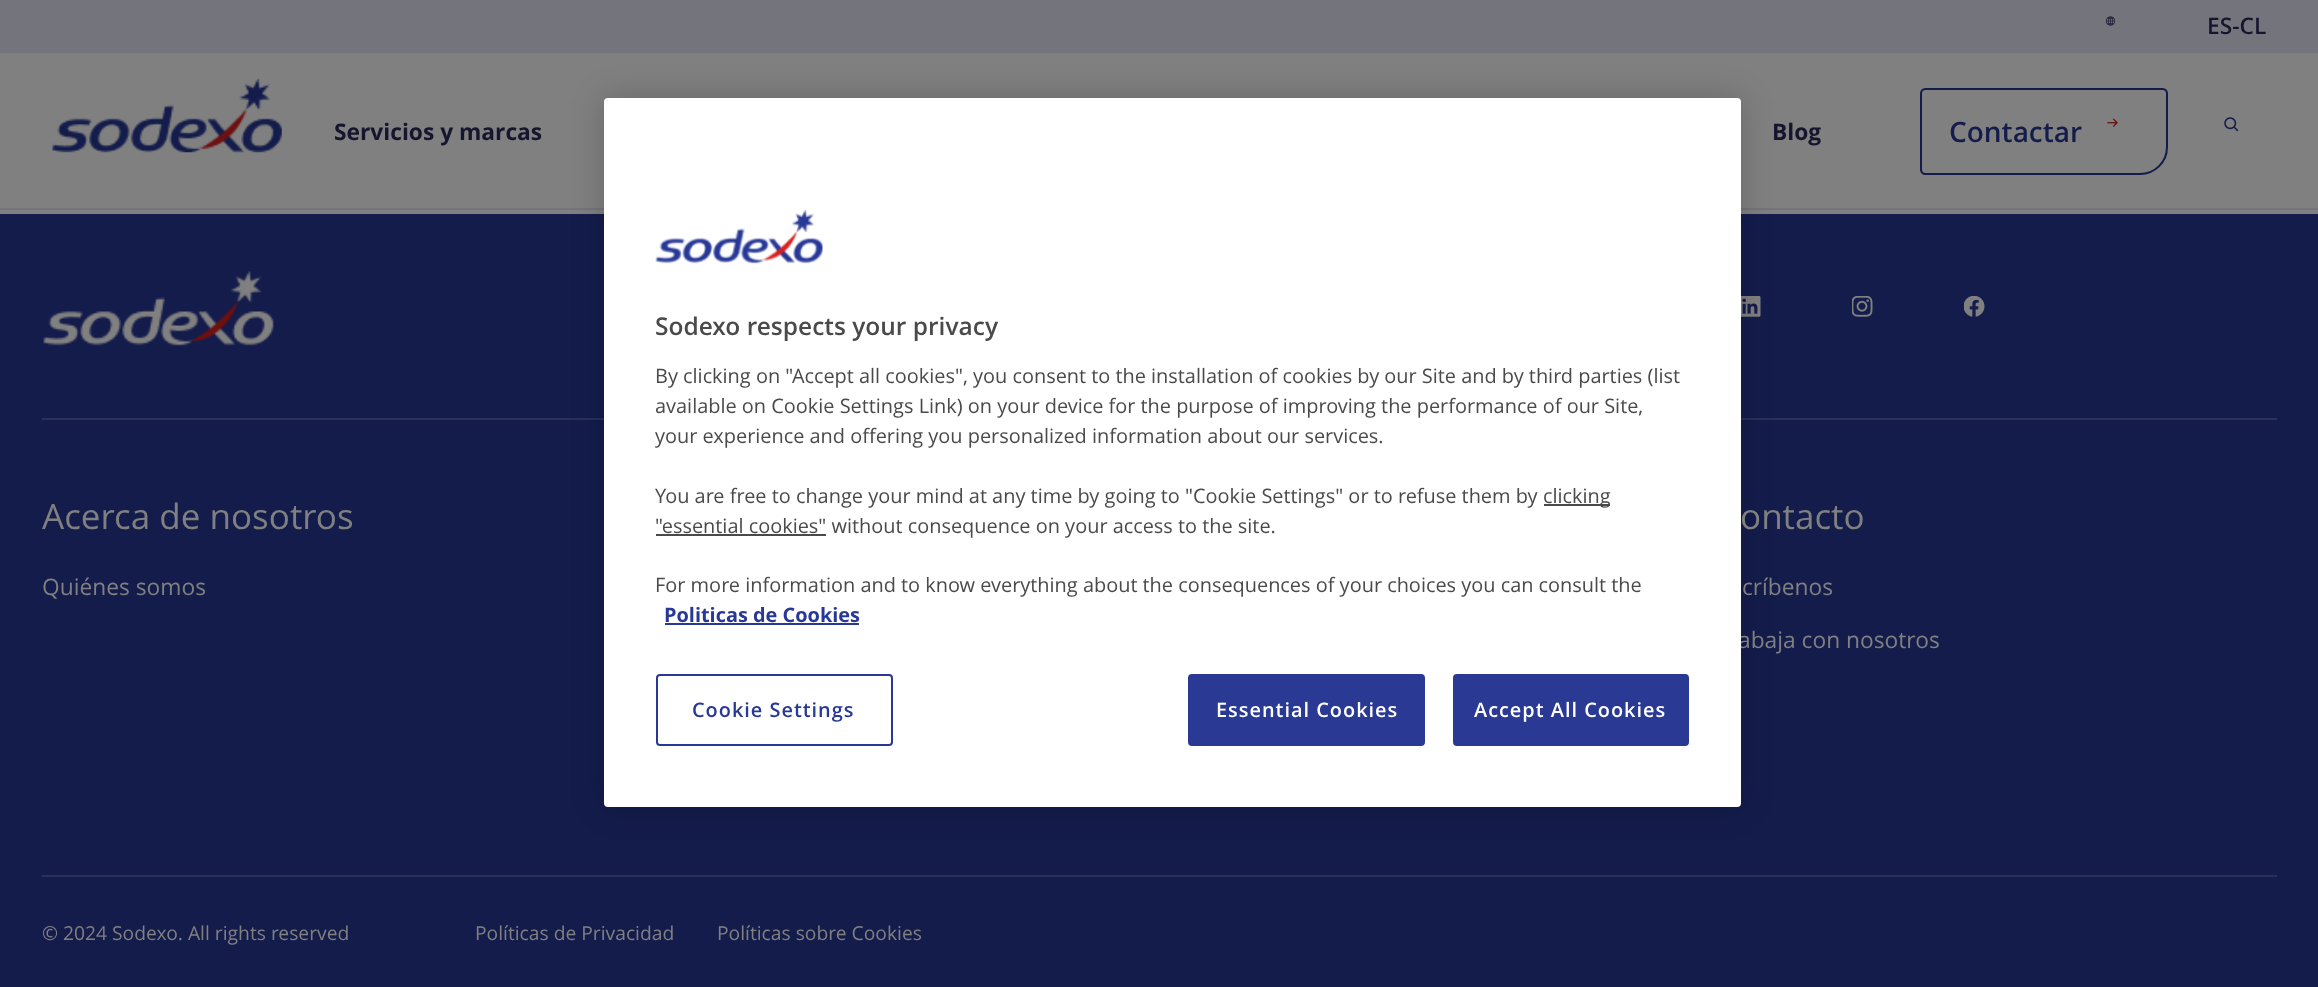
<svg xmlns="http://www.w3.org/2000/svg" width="2318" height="987">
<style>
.a{font:600 22.75px Open Sans;fill:#15152e}
.b{font:bold 22.75px Open Sans;fill:#15152e}
.c{font:600 28px Open Sans;fill:#141c4c}
.d{font:35px Open Sans;fill:#808080}
.e{font:22.75px Open Sans;fill:#808080}
.f{font:19.25px Open Sans;fill:#808080}
.g{font:600 24.5px Open Sans;fill:#4a4a4a}
.h{font:19.92px Open Sans;fill:#4a4a4a}
.i{font:bold 19.92px Open Sans;fill:#283897}
.j{font:600 19.92px Open Sans;letter-spacing:1px;fill:#283897}
.k{font:600 19.92px Open Sans;letter-spacing:1px;fill:#fff}
</style>
<rect width="100%" height="100%" fill="#808080"/>
<path fill="#74757c" d="M0 0h2318v53H0z"/>
<image href="1.png" x="2105" y="16" width="11" height="10"/>
<image href="2.png" x="52" y="78" width="230" height="75"/>
<path fill="none" stroke="#141c4c" stroke-width="2" d="M1925 89h238c2 0 4 2 4 4v54c0 15-12 27-27 27h-215c-2 0-4-2-4-4v-77c0-2 2-4 4-4z"/>
<image href="3.png" x="2107" y="118" width="11" height="9"/>
<image href="4.png" x="2224" y="117" width="15" height="15"/>
<path fill="#74757c" d="M0 208h2318v2H0z"/>
<path fill="#141c4c" d="M0 214h2318v773H0z"/>
<image href="5.png" x="43" y="270" width="231" height="76"/>
<image href="6.png" x="1741" y="296" width="20" height="21"/>
<image href="7.png" x="1852" y="296" width="21" height="21"/>
<image href="8.png" x="1964" y="296" width="21" height="21"/>
<path fill="#2a3056" d="M42 418h2235v2H42z"/>
<path fill="#2a3056" d="M42 875h2235v2H42z"/>
<rect fill="#00000033" filter="blur(16px)" x="604" y="98" width="1137" height="709" rx="4"/>
<text class="a" x="2207" y="34">ES-CL</text>
<text class="b" x="334" y="140">Servicios y marcas</text>
<text class="b" x="1772" y="140">Blog</text>
<text class="c" x="1949" y="142">Contactar</text>
<text class="d" x="42" y="529">Acerca de nosotros</text>
<text class="e" x="42" y="595">Quiénes somos</text>
<text class="d" x="1740" y="529">ontacto</text>
<text class="e" x="1742" y="595">críbenos</text>
<text class="e" x="1738" y="648">abaja con nosotros</text>
<text class="f" x="42" y="940">© 2024 Sodexo. All rights reserved</text>
<text class="f" x="475" y="940">Políticas de Privacidad</text>
<text class="f" x="717" y="940">Políticas sobre Cookies</text>
<rect fill="#fff" x="604" y="98" width="1137" height="709" rx="4"/>
<image href="9.png" x="655" y="209" width="168" height="55"/>
<text class="g" x="655" y="335">Sodexo respects your privacy</text>
<text class="h" x="655" y="383">By clicking on "Accept all cookies", you consent to the installation of cookies by our Site and by third parties (list</text>
<text class="h" x="655" y="413">available on Cookie Settings Link) on your device for the purpose of improving the performance of our Site,</text>
<text class="h" x="655" y="443">your experience and offering you personalized information about our services.</text>
<text class="h" x="655" y="503">You are free to change your mind at any time by going to "Cookie Settings" or to refuse them by</text>
<path fill="#4a4a4a" d="M1544 504h66v2H1544z"/>
<text class="h" x="1543" y="503">clicking</text>
<path fill="#4a4a4a" d="M656 534h170v2H656z"/>
<text class="h" x="655" y="533">"essential cookies" without consequence on your access to the site.</text>
<text class="h" x="655" y="592">For more information and to know everything about the consequences of your choices you can consult the</text>
<text class="i" x="664" y="622">Politicas de Cookies</text>
<path fill="#283897" d="M665 623h194v2H665z"/>
<rect fill="none" stroke="#283897" stroke-width="2" x="657" y="675" width="235" height="70" rx="3"/>
<text class="j" x="692" y="717">Cookie Settings</text>
<rect fill="#293994" stroke="#293994" stroke-width="2" x="1189" y="675" width="235" height="70" rx="3"/>
<text class="k" x="1216" y="717">Essential Cookies</text>
<rect fill="#293994" stroke="#293994" stroke-width="2" x="1454" y="675" width="234" height="70" rx="3"/>
<text class="k" x="1474" y="717">Accept All Cookies</text>
</svg>
